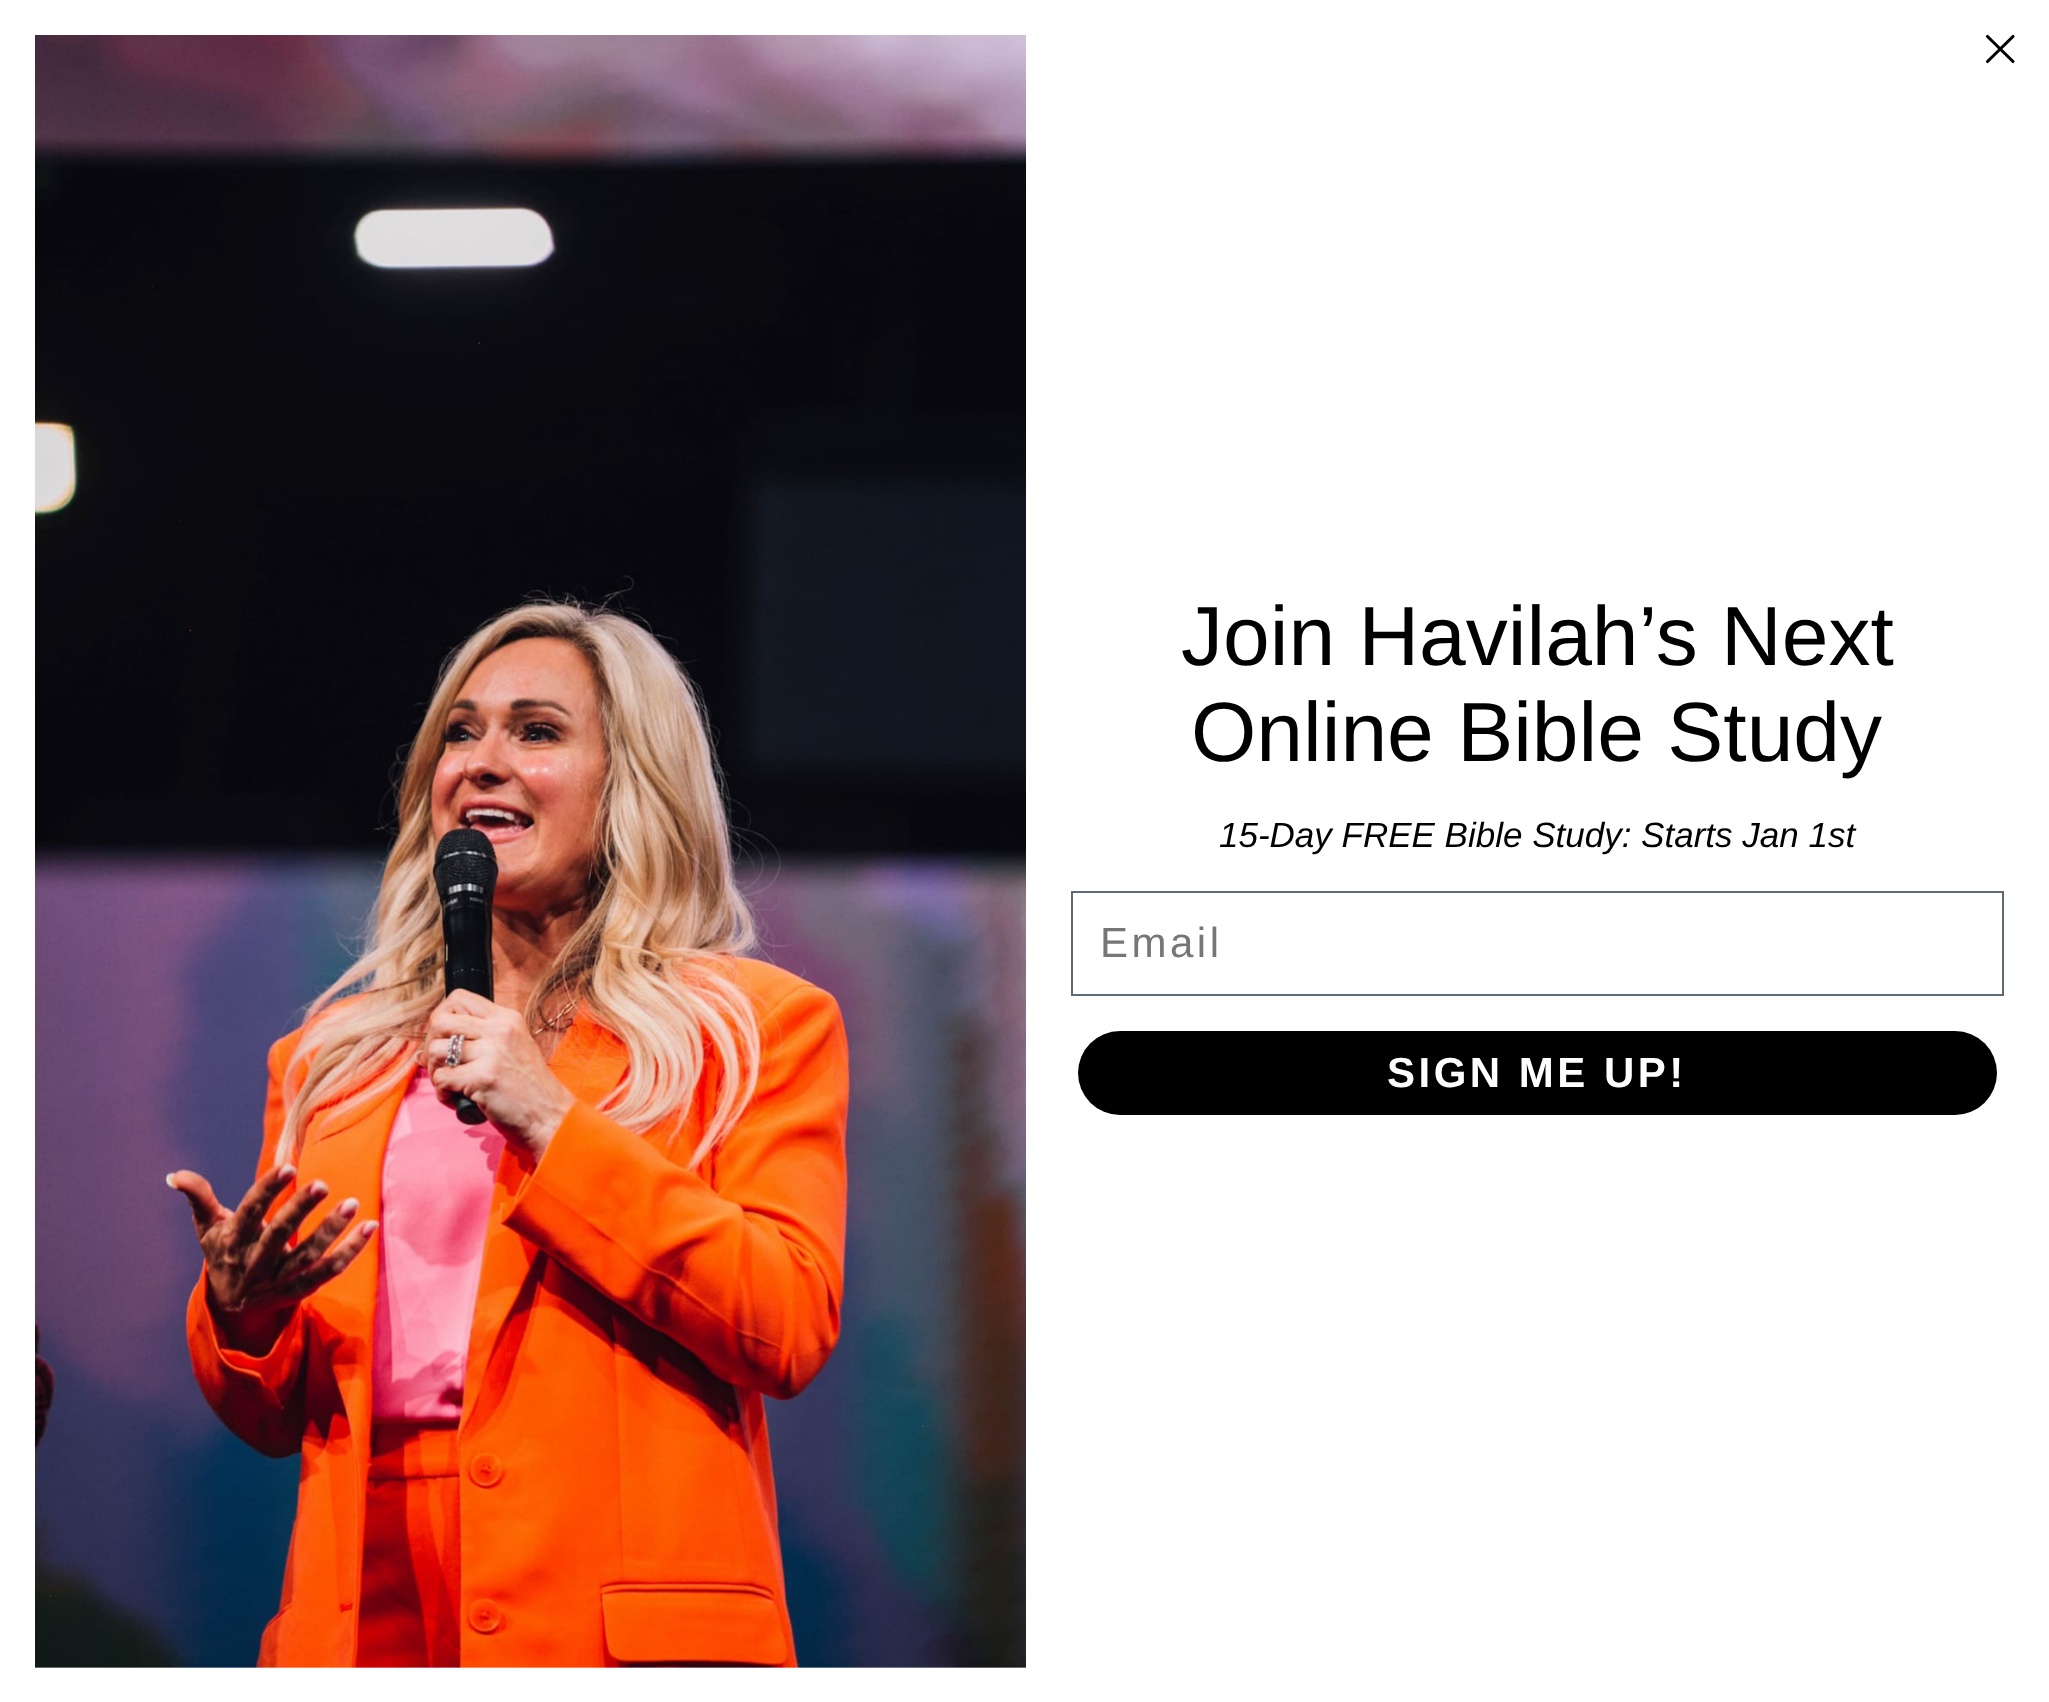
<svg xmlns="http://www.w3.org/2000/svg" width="2049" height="1702">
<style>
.a{font:84px Liberation Sans;fill:#000}
.b{font:italic 35px Liberation Sans;fill:#000}
.c{font:42px Liberation Sans;letter-spacing:3.5px;fill:#767676}
.d{font:bold 42px Liberation Sans;letter-spacing:3.5px;fill:#fff}
</style>
<rect width="100%" height="100%" fill="#fff"/>
<path fill="none" stroke="#000" stroke-width="3.1" stroke-linecap="round" stroke-linejoin="round" d="M1987.5 36.5l25.5 25m-25.5 0l25.5-25z"/>
<image href="1.png" x="35" y="35" width="991" height="1633"/>
<path fill="none" stroke="#606a72" stroke-width="2" d="M1072 892h931v103H1072z"/>
<rect fill="#000" x="1078" y="1031" width="919" height="84" rx="42"/>
<text class="a" x="1181" y="665">Join Havilah’s Next</text>
<text class="a" x="1191" y="761">Online Bible Study</text>
<text class="b" x="1219" y="847">15-Day FREE Bible Study: Starts Jan 1st</text>
<text class="c" x="1100" y="957">Email</text>
<text class="d" x="1387" y="1087">SIGN ME UP!</text>
</svg>
